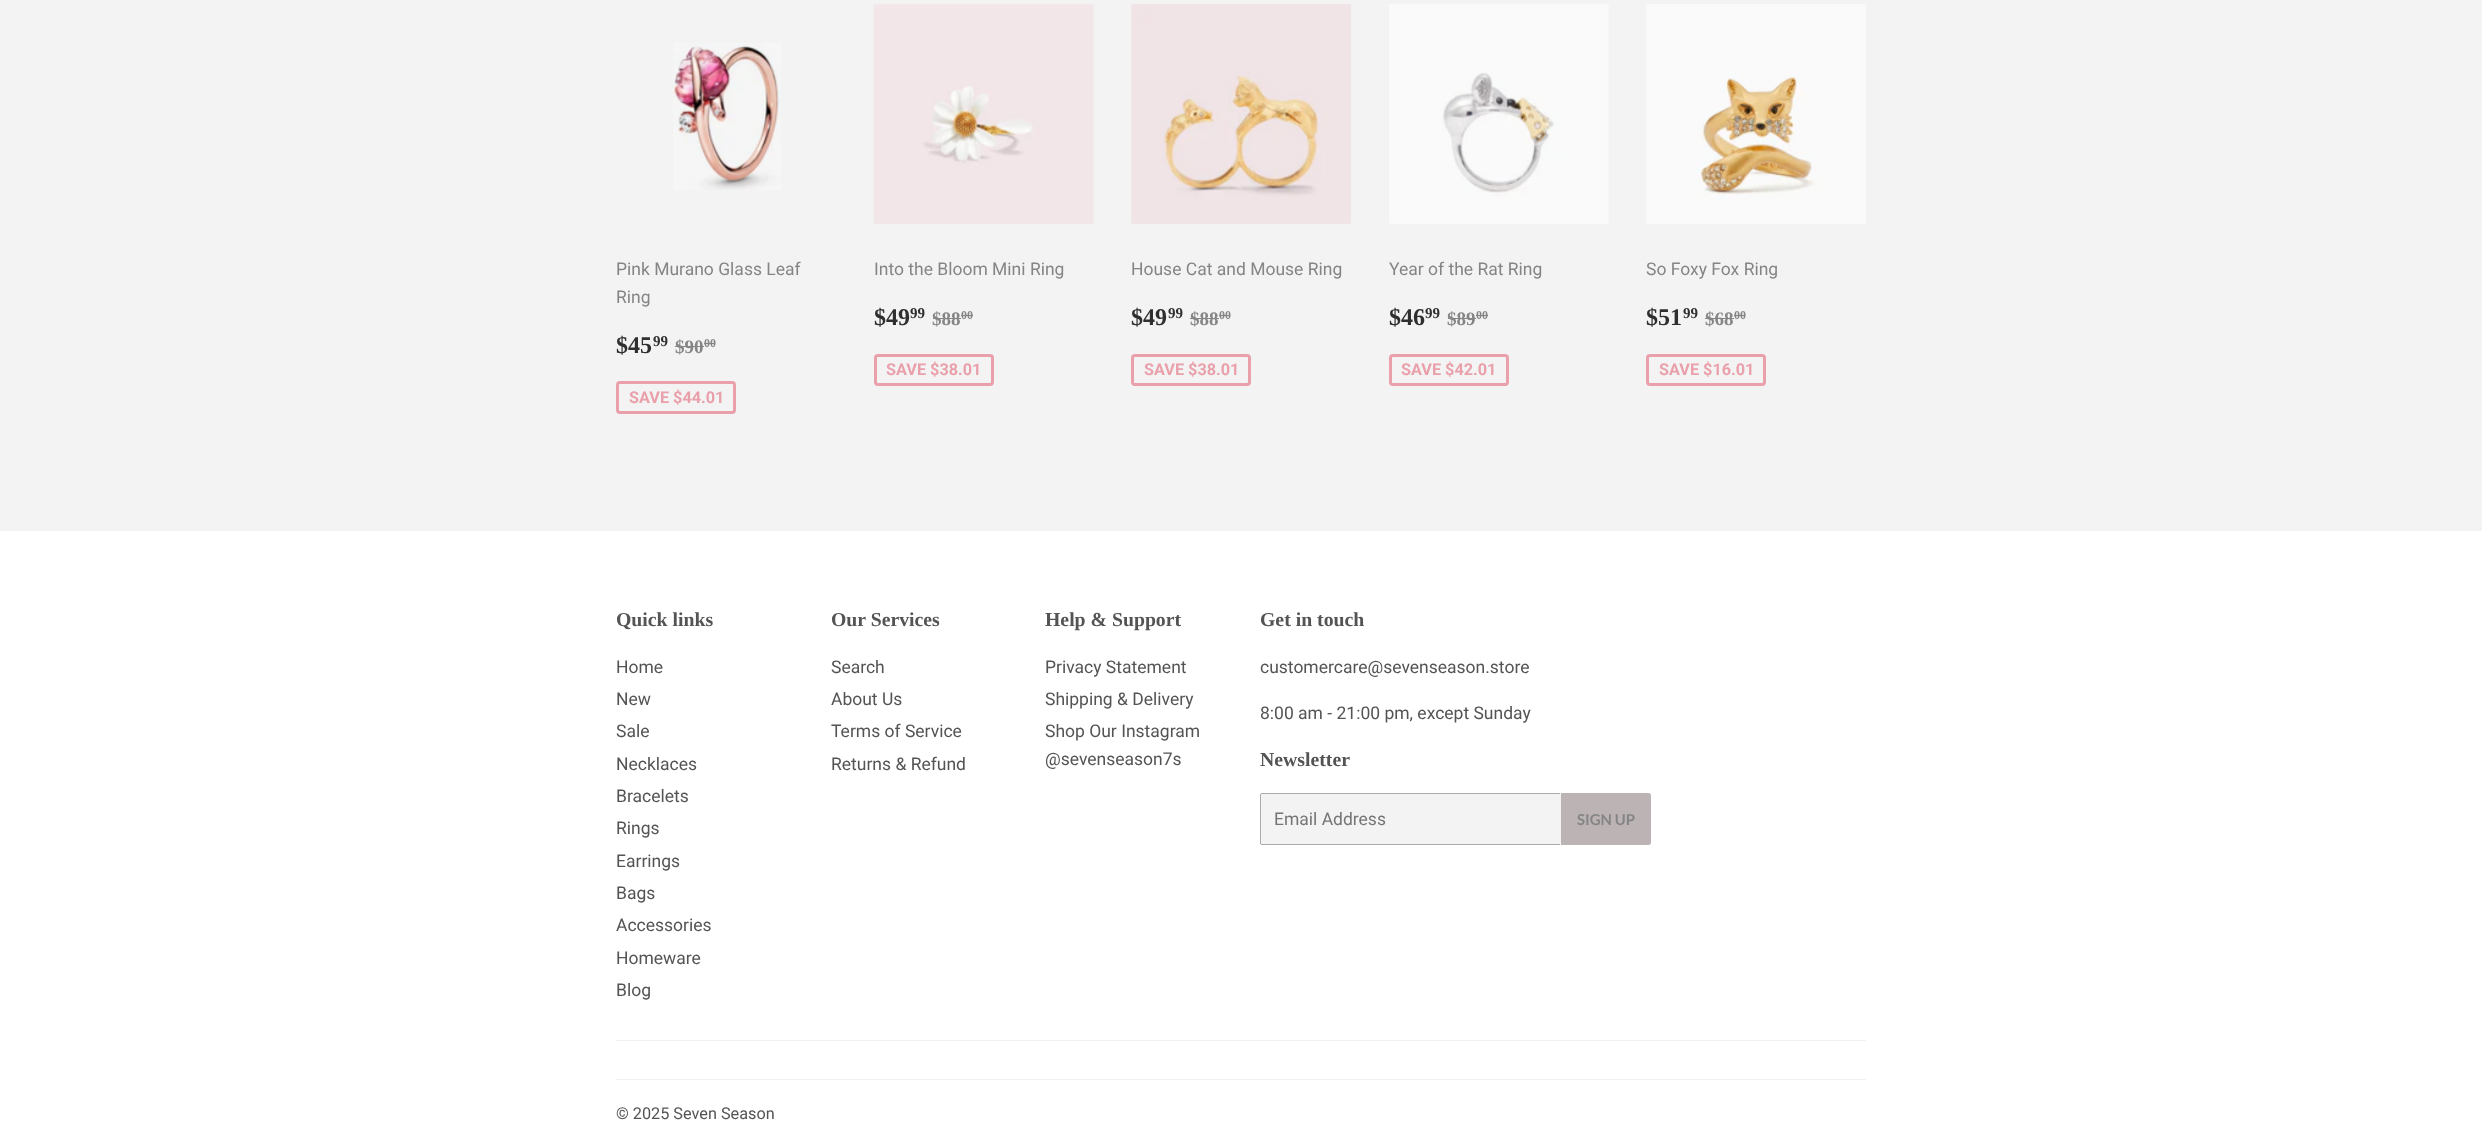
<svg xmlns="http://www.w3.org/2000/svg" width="2482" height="1134">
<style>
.a{font:17.5px Roboto;fill:#858585}
.b{font:bold 24px Liberation Serif;fill:#2f2f2f}
.c{font:bold 15px Liberation Serif;fill:#2f2f2f}
.d{font:bold 19px Liberation Serif;fill:#858585}
.e{font:bold 12px Liberation Serif;fill:#858585}
.f{font:bold 16.25px Roboto;fill:#eaa0ab}
.g{font:bold 19.75px Liberation Serif;fill:#545454}
.h{font:17.5px Roboto;fill:#545454}
.i{font:17.5px Roboto;fill:#757575}
.j{font:bold 15px Lato;fill:#858585}
.k{font:16.25px Roboto;fill:#545454}
</style>
<rect width="100%" height="100%" fill="#f3f3f3"/>
<image href="1.png" x="673" y="43" width="108" height="147"/>
<path fill="#858585" d="M675 346h29v1H675z"/>
<path fill="#858585" d="M704 343h11v1H704z"/>
<rect fill="none" stroke="#eaa0ab" stroke-width="3" x="617.5" y="382.5" width="117" height="30" rx="2.5"/>
<image href="2.png" x="873" y="4" width="221" height="220"/>
<path fill="#858585" d="M933 318h28v1H933z"/>
<path fill="#858585" d="M961 315h12v1H961z"/>
<rect fill="none" stroke="#eaa0ab" stroke-width="3" x="875.5" y="355.5" width="117" height="29" rx="2.5"/>
<image href="3.png" x="1131" y="4" width="220" height="220"/>
<path fill="#858585" d="M1190 318h29v1H1190z"/>
<path fill="#858585" d="M1219 315h11v1H1219z"/>
<rect fill="none" stroke="#eaa0ab" stroke-width="3" x="1132.5" y="355.5" width="117" height="29" rx="2.5"/>
<image href="4.png" x="1389" y="4" width="220" height="220"/>
<path fill="#858585" d="M1448 318h28v1H1448z"/>
<path fill="#858585" d="M1476 315h12v1H1476z"/>
<rect fill="none" stroke="#eaa0ab" stroke-width="3" x="1390.5" y="355.5" width="117" height="29" rx="2.5"/>
<image href="5.png" x="1646" y="4" width="220" height="220"/>
<path fill="#858585" d="M1705 318h29v1H1705z"/>
<path fill="#858585" d="M1734 315h11v1H1734z"/>
<rect fill="none" stroke="#eaa0ab" stroke-width="3" x="1647.5" y="355.5" width="117" height="29" rx="2.5"/>
<path fill="#fff" d="M0 531h2482v603H0z"/>
<rect fill="#f3f3f3" x="1260" y="793" width="301" height="52" rx="2.5"/>
<path fill="#ababab" d="M1261 793h299v1H1261z"/>
<path fill="#ababab" d="M1261 844h299v1H1261z"/>
<path fill="#ababab" d="M1260 794h1v50H1260z"/>
<path fill="#bcb3b5" d="M1561 793h87.5c1.5 0 2.5 1 2.5 2.5v47c0 1.5-1 2.5-2.5 2.5h-87.5z"/>
<path fill="#f2f2f2" d="M616 1040h1250v1H616z"/>
<path fill="#f2f2f2" d="M616 1079h1250v1H616z"/>
<text class="a" x="616" y="275">Pink Murano Glass Leaf</text>
<text class="a" x="616" y="303">Ring</text>
<text class="b" x="616" y="353">$45</text>
<text class="c" x="653" y="346">99</text>
<text class="d" x="675" y="353">$90</text>
<text class="e" x="704" y="347">00</text>
<text class="f" x="629" y="403">SAVE $44.01</text>
<text class="a" x="874" y="275">Into the Bloom Mini Ring</text>
<text class="b" x="874" y="325">$49</text>
<text class="c" x="910" y="318">99</text>
<text class="d" x="932" y="325">$88</text>
<text class="e" x="961" y="319">00</text>
<text class="f" x="886" y="375">SAVE $38.01</text>
<text class="a" x="1131" y="275">House Cat and Mouse Ring</text>
<text class="b" x="1131" y="325">$49</text>
<text class="c" x="1168" y="318">99</text>
<text class="d" x="1190" y="325">$88</text>
<text class="e" x="1219" y="319">00</text>
<text class="f" x="1144" y="375">SAVE $38.01</text>
<text class="a" x="1389" y="275">Year of the Rat Ring</text>
<text class="b" x="1389" y="325">$46</text>
<text class="c" x="1425" y="318">99</text>
<text class="d" x="1447" y="325">$89</text>
<text class="e" x="1476" y="319">00</text>
<text class="f" x="1401" y="375">SAVE $42.01</text>
<text class="a" x="1646" y="275">So Foxy Fox Ring</text>
<text class="b" x="1646" y="325">$51</text>
<text class="c" x="1683" y="318">99</text>
<text class="d" x="1705" y="325">$68</text>
<text class="e" x="1734" y="319">00</text>
<text class="f" x="1659" y="375">SAVE $16.01</text>
<text class="g" x="616" y="626">Quick links</text>
<text class="h" x="616" y="673">Home</text>
<text class="h" x="616" y="705">New</text>
<text class="h" x="616" y="737">Sale</text>
<text class="h" x="616" y="770">Necklaces</text>
<text class="h" x="616" y="802">Bracelets</text>
<text class="h" x="616" y="834">Rings</text>
<text class="h" x="616" y="867">Earrings</text>
<text class="h" x="616" y="899">Bags</text>
<text class="h" x="616" y="931">Accessories</text>
<text class="h" x="616" y="964">Homeware</text>
<text class="h" x="616" y="996">Blog</text>
<text class="g" x="831" y="626">Our Services</text>
<text class="h" x="831" y="673">Search</text>
<text class="h" x="831" y="705">About Us</text>
<text class="h" x="831" y="737">Terms of Service</text>
<text class="h" x="831" y="770">Returns &amp; Refund</text>
<text class="g" x="1045" y="626">Help &amp; Support</text>
<text class="h" x="1045" y="673">Privacy Statement</text>
<text class="h" x="1045" y="705">Shipping &amp; Delivery</text>
<text class="h" x="1045" y="737">Shop Our Instagram</text>
<text class="h" x="1045" y="765">@sevenseason7s</text>
<text class="g" x="1260" y="626">Get in touch</text>
<text class="h" x="1260" y="673">customercare@sevenseason.store</text>
<text class="h" x="1260" y="719">8:00 am - 21:00 pm, except Sunday</text>
<text class="g" x="1260" y="766">Newsletter</text>
<text class="i" x="1274" y="825">Email Address</text>
<text class="j" x="1577" y="825">SIGN UP</text>
<text class="k" x="616" y="1119">© 2025 Seven Season</text>
</svg>
